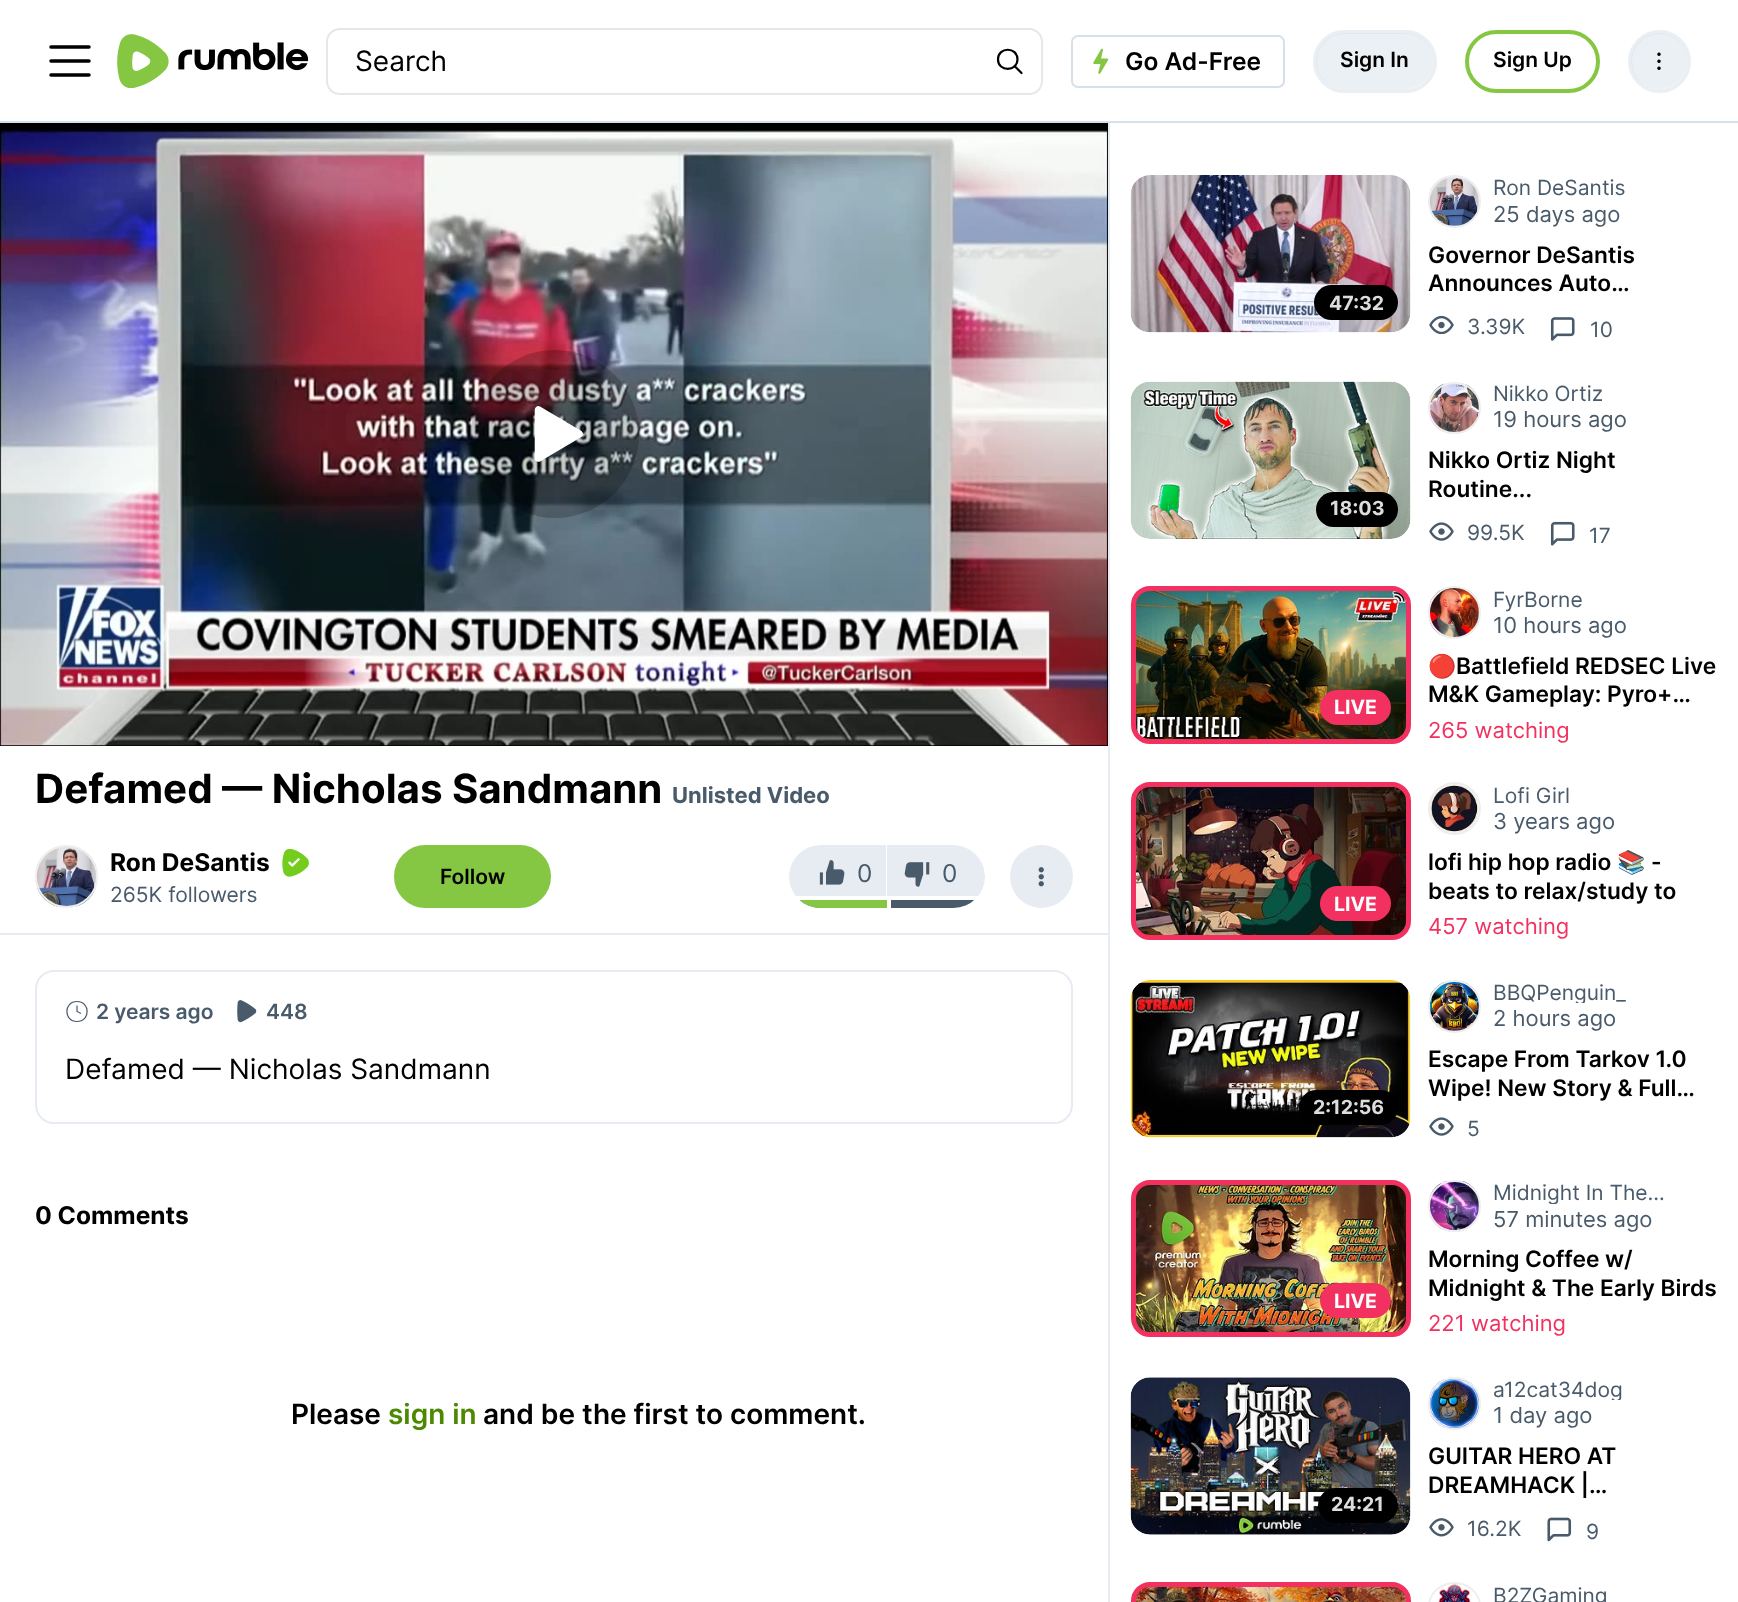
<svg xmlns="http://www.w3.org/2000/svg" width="1738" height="1602">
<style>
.a{font:28px Inter;fill:#000}
.b{font:600 24.5px Inter;fill:#000}
.c{font:600 21px Inter;fill:#000}
.d{font:bold 40.25px Inter;fill:#000}
.e{font:bold 22px Inter;fill:#495a6a}
.f{font:bold 24.5px Inter;fill:#000}
.g{font:21px Inter;fill:#495a6a}
.h{font:24.5px Inter;fill:#495a6a}
.i{font:600 21px Inter;fill:#495a6a}
.j{font:600 28px Inter;fill:#000}
.k{font:600 28px Inter;fill:#4c8800}
.l{font:bold 19.5px Inter;fill:#ddd}
.m{font:22px Inter;fill:#495a6a}
.n{font:600 22.75px Inter;fill:#000}
.o{font:bold 19.5px Inter;fill:#fff}
.p{font:bold 22.75px Noto Color Emoji;fill:#000}
.q{font:22px Inter;fill:#f23160}
</style>
<defs>
<clipPath id="clip1"><rect x="789" y="845" width="196" height="63" rx="31.5"/></clipPath>
<clipPath id="clip2"><path d="M1493 980h133v23H1493z"/></clipPath>
<clipPath id="clip3"><path d="M1493 1181h226v23H1493z"/></clipPath>
<clipPath id="clip4"><path d="M1493 1377h129v23H1493z"/></clipPath>
<clipPath id="clip5"><path d="M1428 1442h291v56H1428z"/></clipPath>
</defs>
<rect width="100%" height="100%" fill="#fff"/>
<path fill="#d6e0ea" d="M0 121h1738v2H0z"/>
<path fill="none" stroke="#000" stroke-width="3.5" stroke-linecap="round" stroke-linejoin="round" d="M51 47h38m-38 14h38m-38 14h38"/>
<image href="1.png" x="117" y="34" width="52" height="54"/>
<image href="2.png" x="178" y="42" width="131" height="29"/>
<rect fill="none" stroke="#e4e8ec" stroke-width="2" x="327" y="29" width="715" height="65" rx="13"/>
<path fill="none" stroke="#000" stroke-width="2.2" stroke-linecap="round" d="M1014.5 66l7 7m-23.5-13.5c0 12.5 19.5 12.5 19.5 0c0-13-19.5-13-19.5 0"/>
<rect fill="none" stroke="#d6e0ea" stroke-width="2" x="1072" y="36" width="212" height="51" rx="6"/>
<image href="3.png" x="1093" y="48" width="16" height="26"/>
<rect fill="#ebf0f5" x="1316" y="33" width="117" height="56" rx="28"/>
<rect fill="none" stroke="#d6e0ea80" stroke-width="4" x="1315" y="32" width="120" height="59" rx="29.5"/>
<rect fill="none" stroke="#85c742" stroke-width="4" x="1467" y="32" width="131" height="59" rx="29.5"/>
<circle fill="#ebf0f5" cx="1659" cy="61" r="28"/>
<circle fill="none" stroke="#d6e0ea80" stroke-width="4" cx="1659.5" cy="61.5" r="29.5"/>
<image href="4.png" x="1657" y="52" width="4" height="18"/>
<path fill="#000" d="M0 123h1108v623H0z"/>
<image href="5.png" x="0" y="123" width="1108" height="623"/>
<circle fill="#00000033" cx="555" cy="434" r="84"/>
<path fill="#fff" d="M579 434l-40-24v48z"/>
<path fill="none" stroke="#fff" stroke-width="7.6" stroke-linejoin="round" d="M579 434l-40.5-24v48z"/>
<path fill="#e6ecf2" d="M0 933h1108v2H0z"/>
<image href="6.png" x="36" y="847" width="61" height="60"/>
<circle fill="none" stroke="#eee" stroke-width="2" cx="66.5" cy="876.5" r="30.5"/>
<image href="7.png" x="282" y="849" width="27" height="28"/>
<rect fill="#85c742" stroke="#85c742" stroke-width="4" x="396" y="847" width="153" height="59" rx="29.5"/>
<g clip-path="url(#clip1)">
<path fill="#e6ecf2" d="M820.5 845h65.5v51h-97v-19.5c0-17.5 14-31.5 31.5-31.5z"/>
</g>
<image href="8.png" x="819" y="860" width="26" height="25"/>
<g clip-path="url(#clip1)">
<path fill="#e6ecf2" d="M887 845h66.5c17.5 0 31.5 14 31.5 31.5v19.5h-98z"/>
</g>
<image href="9.png" x="904" y="862" width="26" height="25"/>
<g clip-path="url(#clip1)">
<rect fill="#495a6a" x="789" y="900" width="196" height="8" rx="4"/>
<path fill="#85c742" d="M793 900h98v8h-98c-2 0-4-2-4-4c0-2 2-4 4-4z"/>
</g>
<path fill="#fff" d="M887 900h4v8H887z"/>
<circle fill="#e6ecf2" cx="1041.5" cy="876.5" r="31.5"/>
<image href="10.png" x="1038" y="867" width="6" height="20"/>
<rect fill="none" stroke="#e6ecf2" stroke-width="2" x="36" y="971" width="1036" height="152" rx="18"/>
<path fill="none" stroke="#495a6a" stroke-width="1.2" d="M77 1021.5c13.5 0 13.5-20 0-20c-13.5 0-13.5 20 0 20zm0-16v6l4 2"/>
<image href="11.png" x="237" y="1000" width="20" height="23"/>
<path fill="#e6ecf2" d="M1108 123h2v1479H1108z"/>
<image href="12.png" x="1130" y="175" width="281" height="158"/>
<rect fill="#000" x="1314" y="285" width="84" height="35" rx="17.5"/>
<image href="13.png" x="1429" y="176" width="50" height="50"/>
<circle fill="none" stroke="#eee" stroke-width="2" cx="1454.5" cy="201.5" r="25.5"/>
<image href="14.png" x="1429" y="315" width="25" height="19"/>
<image href="15.png" x="1550" y="317" width="25" height="24"/>
<image href="16.png" x="1130" y="381" width="281" height="158"/>
<rect fill="#000" x="1316" y="492" width="82" height="35" rx="17.5"/>
<image href="17.png" x="1429" y="383" width="50" height="50"/>
<rect fill="none" stroke="#eee" stroke-width="2" x="1429" y="383" width="51" height="50" rx="25"/>
<image href="18.png" x="1429" y="522" width="25" height="19"/>
<image href="19.png" x="1550" y="521" width="25" height="25"/>
<image href="20.png" x="1136" y="591" width="270" height="148"/>
<rect fill="#f23160" x="1320" y="690" width="71" height="35" rx="17.5"/>
<rect fill="none" stroke="#f23160" stroke-width="5" x="1133.5" y="588.5" width="275" height="153" rx="16.5"/>
<image href="21.png" x="1429" y="588" width="50" height="49"/>
<circle fill="none" stroke="#eee" stroke-width="2" cx="1454.5" cy="612.5" r="25.5"/>
<image href="22.png" x="1136" y="787" width="270" height="148"/>
<rect fill="#f23160" x="1320" y="886" width="71" height="35" rx="17.5"/>
<rect fill="none" stroke="#f23160" stroke-width="5" x="1133.5" y="784.5" width="275" height="153" rx="16.5"/>
<image href="23.png" x="1429" y="784" width="50" height="49"/>
<circle fill="none" stroke="#eee" stroke-width="2" cx="1454.5" cy="808.5" r="25.5"/>
<image href="24.png" x="1130" y="980" width="281" height="158"/>
<rect fill="#000" x="1299" y="1090" width="99" height="35" rx="17.5"/>
<image href="25.png" x="1429" y="981" width="50" height="50"/>
<circle fill="none" stroke="#eee" stroke-width="2" cx="1454.5" cy="1006.5" r="25.5"/>
<image href="18.png" x="1429" y="1117" width="25" height="19"/>
<image href="26.png" x="1136" y="1185" width="270" height="147"/>
<rect fill="#f23160" x="1320" y="1283" width="71" height="35" rx="17.5"/>
<rect fill="none" stroke="#f23160" stroke-width="5" x="1133.5" y="1182.5" width="275" height="152" rx="16.5"/>
<image href="27.png" x="1429" y="1181" width="50" height="50"/>
<rect fill="none" stroke="#eee" stroke-width="2" x="1429" y="1181" width="51" height="50" rx="25"/>
<image href="28.png" x="1130" y="1377" width="281" height="158"/>
<rect fill="#000" x="1318" y="1488" width="80" height="35" rx="17.5"/>
<image href="29.png" x="1429" y="1379" width="50" height="49"/>
<circle fill="none" stroke="#eee" stroke-width="2" cx="1454.5" cy="1403.5" r="25.5"/>
<image href="30.png" x="1429" y="1518" width="25" height="19"/>
<image href="31.png" x="1547" y="1517" width="25" height="25"/>
<image href="32.png" x="1136" y="1587" width="270" height="15"/>
<rect fill="none" stroke="#f23160" stroke-width="5" x="1133.5" y="1584.5" width="275" height="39" rx="16.5"/>
<image href="33.png" x="1438" y="1584" width="33" height="18"/>
<rect fill="none" stroke="#eee" stroke-width="2" x="1429" y="1583" width="51" height="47" rx="25.5"/>
<text class="a" x="355" y="71">Search</text>
<text class="b" x="1125" y="70">Go Ad-Free</text>
<text class="c" x="1340" y="67">Sign In</text>
<text class="c" x="1493" y="67">Sign Up</text>
<text class="d" x="35" y="803">Defamed — Nicholas Sandmann</text>
<text class="e" x="672" y="803">Unlisted Video</text>
<text class="f" x="110" y="871">Ron DeSantis</text>
<text class="g" x="110" y="902">265K followers</text>
<text class="c" x="440" y="884">Follow</text>
<text class="h" x="857" y="882">0</text>
<text class="h" x="942" y="882">0</text>
<text class="i" x="96" y="1019">2 years ago</text>
<text class="i" x="266" y="1019">448</text>
<text class="a" x="65" y="1079">Defamed — Nicholas Sandmann</text>
<text class="f" x="35" y="1224">0 Comments</text>
<text class="j" x="291" y="1424">Please</text>
<text class="k" x="388" y="1424">sign in</text>
<text class="j" x="483" y="1424">and be the first to comment.</text>
<text class="l" x="1329" y="310">47:32</text>
<text class="g" x="1493" y="195">Ron DeSantis</text>
<text class="m" x="1493" y="222">25 days ago</text>
<text class="n" x="1428" y="263">Governor DeSantis</text>
<text class="n" x="1428" y="291">Announces Auto…</text>
<text class="g" x="1467" y="334">3.39K</text>
<text class="g" x="1590" y="337">10</text>
<text class="l" x="1330" y="515">18:03</text>
<text class="g" x="1493" y="401">Nikko Ortiz</text>
<text class="m" x="1493" y="427">19 hours ago</text>
<text class="n" x="1428" y="468">Nikko Ortiz Night</text>
<text class="n" x="1428" y="497">Routine...</text>
<text class="g" x="1467" y="540">99.5K</text>
<text class="g" x="1589" y="543">17</text>
<text class="o" x="1334" y="714">LIVE</text>
<text class="g" x="1493" y="607">FyrBorne</text>
<text class="m" x="1493" y="633">10 hours ago</text>
<text class="p" x="1428" y="674">🔴</text>
<text class="n" x="1456" y="674">Battlefield REDSEC Live</text>
<text class="n" x="1428" y="702">M&amp;K Gameplay: Pyro+…</text>
<text class="q" x="1428" y="738">265 watching</text>
<text class="o" x="1334" y="911">LIVE</text>
<text class="g" x="1493" y="803">Lofi Girl</text>
<text class="m" x="1493" y="829">3 years ago</text>
<text class="n" x="1428" y="870">lofi hip hop radio</text>
<text class="p" x="1617" y="870">📚</text>
<text class="n" x="1651" y="870">-</text>
<text class="n" x="1428" y="899">beats to relax/study to</text>
<text class="q" x="1428" y="934">457 watching</text>
<text class="l" x="1313" y="1114">2:12:56</text>
<g clip-path="url(#clip2)">
<text class="g" x="1493" y="1000">BBQPenguin_</text>
</g>
<text class="m" x="1493" y="1026">2 hours ago</text>
<text class="n" x="1428" y="1067">Escape From Tarkov 1.0</text>
<text class="n" x="1428" y="1096">Wipe! New Story &amp; Full…</text>
<text class="g" x="1467" y="1136">5</text>
<text class="o" x="1334" y="1308">LIVE</text>
<g clip-path="url(#clip3)">
<text class="g" x="1493" y="1200">Midnight In The…</text>
</g>
<text class="m" x="1493" y="1227">57 minutes ago</text>
<text class="n" x="1428" y="1267">Morning Coffee w/</text>
<text class="n" x="1428" y="1296">Midnight &amp; The Early Birds</text>
<text class="q" x="1428" y="1331">221 watching</text>
<text class="l" x="1331" y="1511">24:21</text>
<g clip-path="url(#clip4)">
<text class="g" x="1493" y="1397">a12cat34dog</text>
</g>
<text class="m" x="1493" y="1423">1 day ago</text>
<text class="n" x="1428" y="1464">GUITAR HERO AT</text>
<g clip-path="url(#clip5)">
<text class="n" x="1428" y="1493">DREAMHACK |…</text>
</g>
<text class="g" x="1467" y="1536">16.2K</text>
<text class="g" x="1586" y="1539">9</text>
<text class="g" x="1493" y="1603">B2ZGaming</text>
</svg>
